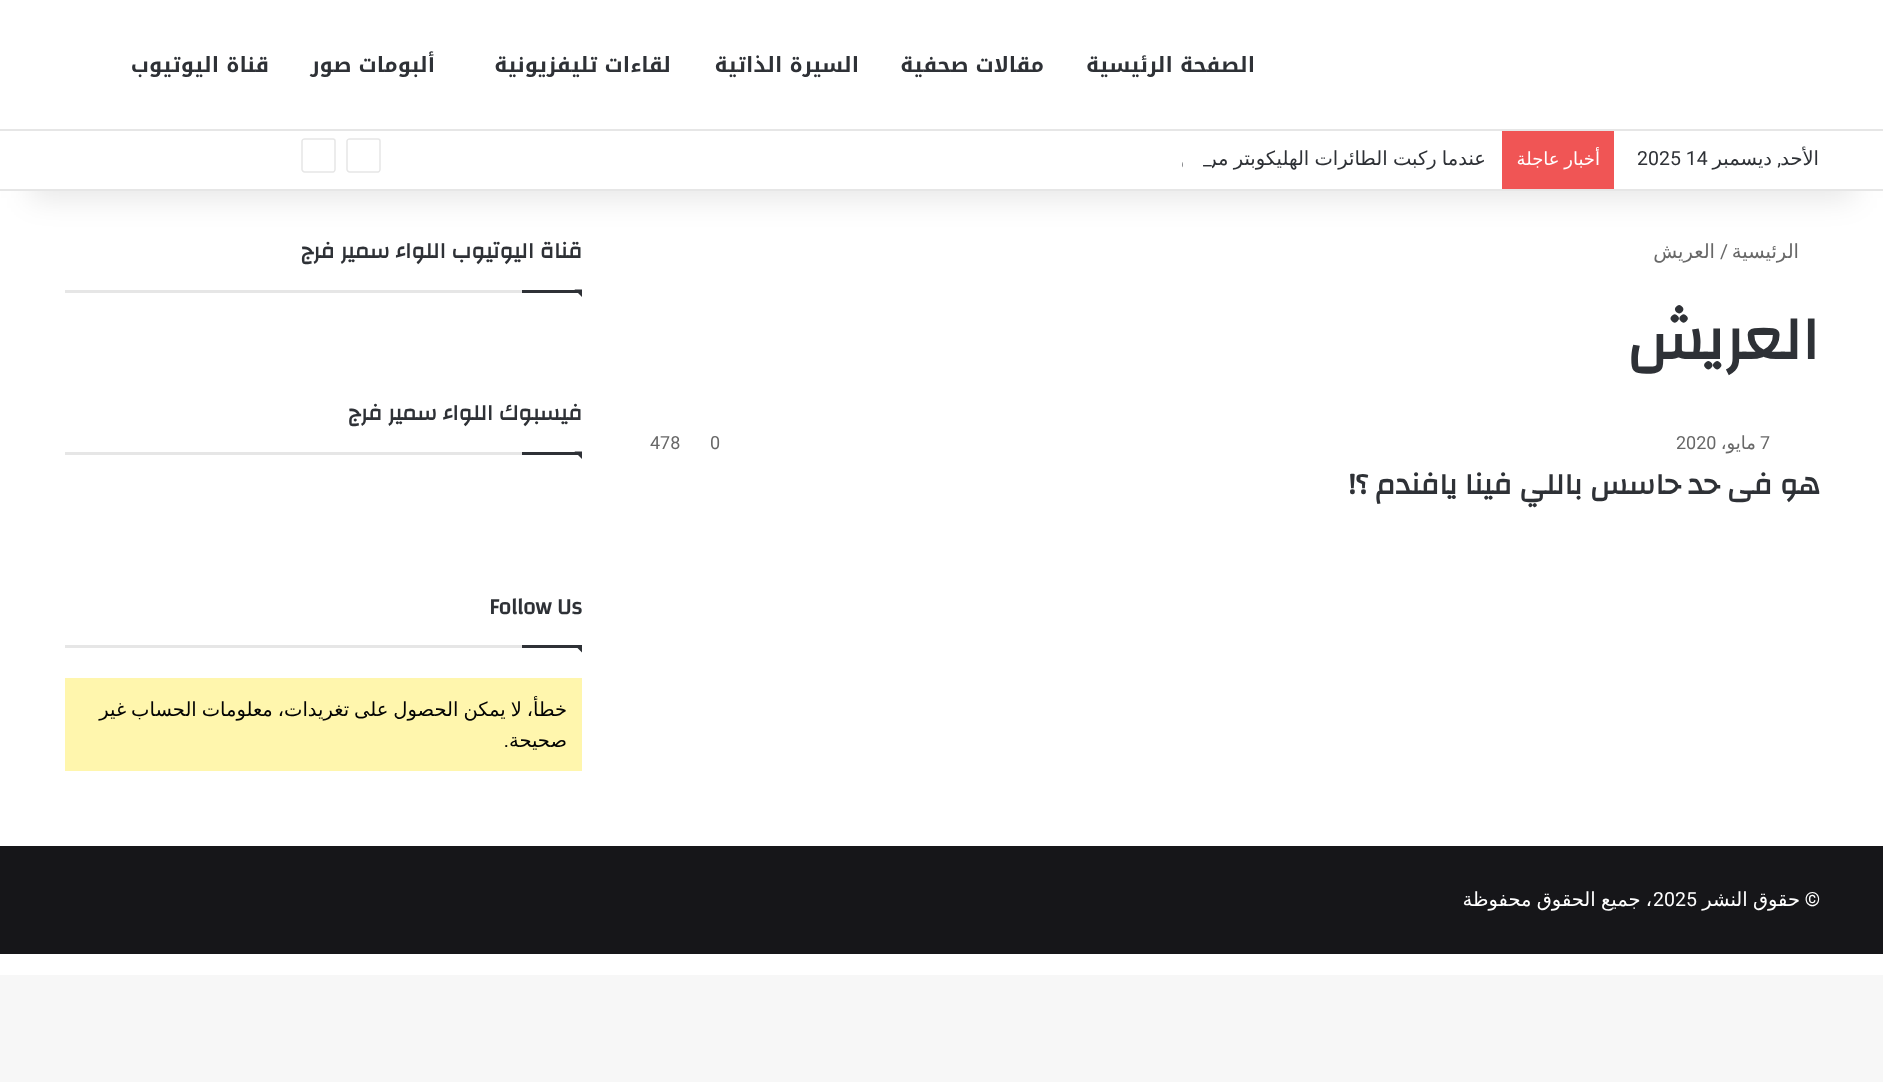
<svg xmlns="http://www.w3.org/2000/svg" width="1883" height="1082">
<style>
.a{font:bold 21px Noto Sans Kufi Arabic;direction:rtl;fill:#2e3136}
.b{font:19.5px DejaVu Sans;direction:rtl;fill:#2e3136}
.c{font:19.5px Roboto;direction:rtl;fill:#2e3136}
.d{font:19.5px Roboto;fill:#2e3136}
.e{font:18px DejaVu Sans;direction:rtl;fill:#fff}
.f{font:19.5px DejaVu Sans;direction:rtl;fill:#686868}
.g{font:19.5px Roboto;fill:#686868}
.h{font:bold 61.5px Changa;direction:rtl;fill:#2e3136}
.i{font:18px Roboto;fill:#686868}
.j{font:18px DejaVu Sans;direction:rtl;fill:#686868}
.k{font:bold 30px Changa;direction:rtl;fill:#2e3136}
.l{font:bold 22.5px Changa;direction:rtl;fill:#2e3136}
.m{font:bold 22.5px Changa;fill:#2e3136}
.n{font:19.5px DejaVu Sans;direction:rtl;fill:#030303}
.o{font:19.5px Roboto;direction:rtl;fill:#030303}
.p{font:19.5px Roboto;direction:rtl;fill:#fff}
.q{font:19.5px DejaVu Sans;direction:rtl;fill:#fff}
.r{font:19.5px Roboto;fill:#fff}
</style>
<defs>
<clipPath id="clip1"><path d="M1154 129h333v60H1154z"/></clipPath>
</defs>
<rect width="100%" height="100%" fill="#f7f7f7"/>
<path fill="#fff" d="M0 191h1883v784H0z"/>
<path fill="#0000001a" filter="blur(15px)" d="M30 68h1824v130H30z"/>
<path fill="#fff" d="M0 0h1883v189H0z"/>
<path fill="#e6e6e6" d="M0 129h1883v2H0z"/>
<path fill="#e6e6e6" d="M0 189h1883v2H0z"/>
<path fill="#f05555" d="M1502 131h112v58H1502z"/>
<path fill="none" stroke="#e6e6e6" stroke-width="1.5" d="M378 172h-28.5c-1 0-2.5-1.5-2.5-2.5v-28.5c0-1 1.5-2 2.5-2h28.5c1 0 2 1 2 2v28.5c0 1-1 2.5-2 2.5z"/>
<path fill="none" stroke="#e6e6e6" stroke-width="1.5" d="M333 172h-28.5c-1 0-2.5-1.5-2.5-2.5v-28.5c0-1 1.5-2 2.5-2h28.5c1 0 2 1 2 2v28.5c0 1-1 2.5-2 2.5z"/>
<path fill="#e6e6e6" d="M65 290h457v3H65z"/>
<path fill="#2e3136" d="M574.5 289.5h7.5v7.5z"/>
<path fill="#2e3136" d="M522 290h60v3H522z"/>
<path fill="#e6e6e6" d="M65 452h457v3H65z"/>
<path fill="#2e3136" d="M574.5 451.5h7.5v7.5z"/>
<path fill="#2e3136" d="M522 452h60v3H522z"/>
<path fill="#e6e6e6" d="M65 645h457v3H65z"/>
<path fill="#2e3136" d="M574.5 645h7.5v7.5z"/>
<path fill="#2e3136" d="M522 645h60v3H522z"/>
<path fill="#fff6ad" d="M65 678h517v93H65z"/>
<path fill="#161619" d="M0 846h1883v108H0z"/>
<text class="a" x="1255" y="72">الصفحة الرئيسية</text>
<text class="a" x="1044" y="72">مقالات صحفية</text>
<text class="a" x="859" y="72">السيرة الذاتية</text>
<text class="a" x="671" y="72">لقاءات تليفزيونية</text>
<text class="a" x="435" y="72">ألبومات صور</text>
<text class="a" x="269" y="72">قناة اليوتيوب</text>
<text class="b" x="1819" y="165">الأحد</text>
<text class="c" x="1781" y="165">,</text>
<text class="b" x="1772" y="165">ديسمبر</text>
<text class="d" x="1637" y="165">2025 14</text>
<text class="e" x="1600" y="165" word-spacing="-1">أخبار عاجلة</text>
<g clip-path="url(#clip1)">
<text class="b" x="1486" y="165" word-spacing="-1">عندما ركبت الطائرات الهليكوبتر مرتين</text>
</g>
<path fill="#fff" d="M1183 155h29v15H1183z"/>
<text class="d" x="1203" y="165">_</text>
<text class="f" x="1799" y="258">الرئيسية</text>
<text class="g" x="1720" y="258">/</text>
<text class="f" x="1715" y="258">العريش</text>
<text class="h" x="1819" y="359">العريش</text>
<text class="i" x="1760" y="449">7</text>
<text class="j" x="1756" y="449">مايو،</text>
<text class="i" x="1676" y="449">2020</text>
<text class="i" x="710" y="449">0</text>
<text class="i" x="650" y="449">478</text>
<text class="k" x="1820" y="494">هو فى حد حاسس باللي فينا يافندم ؟!</text>
<text class="l" x="582" y="258">قناة اليوتيوب اللواء سمير فرج</text>
<text class="l" x="582" y="420">فيسبوك اللواء سمير فرج</text>
<text class="m" x="489" y="614">Follow Us</text>
<text class="n" x="567" y="716" word-spacing="-1.25">خطأ، لا يمكن الحصول على تغريدات، معلومات الحساب غير</text>
<text class="n" x="567" y="747">صحيحة</text>
<text class="o" x="509" y="747">.</text>
<text class="p" x="1820" y="906">©</text>
<text class="q" x="1800" y="906" word-spacing="-1">حقوق النشر</text>
<text class="r" x="1653" y="906">2025</text>
<text class="q" x="1652" y="906" word-spacing="-1">، جميع الحقوق محفوظة</text>
</svg>
